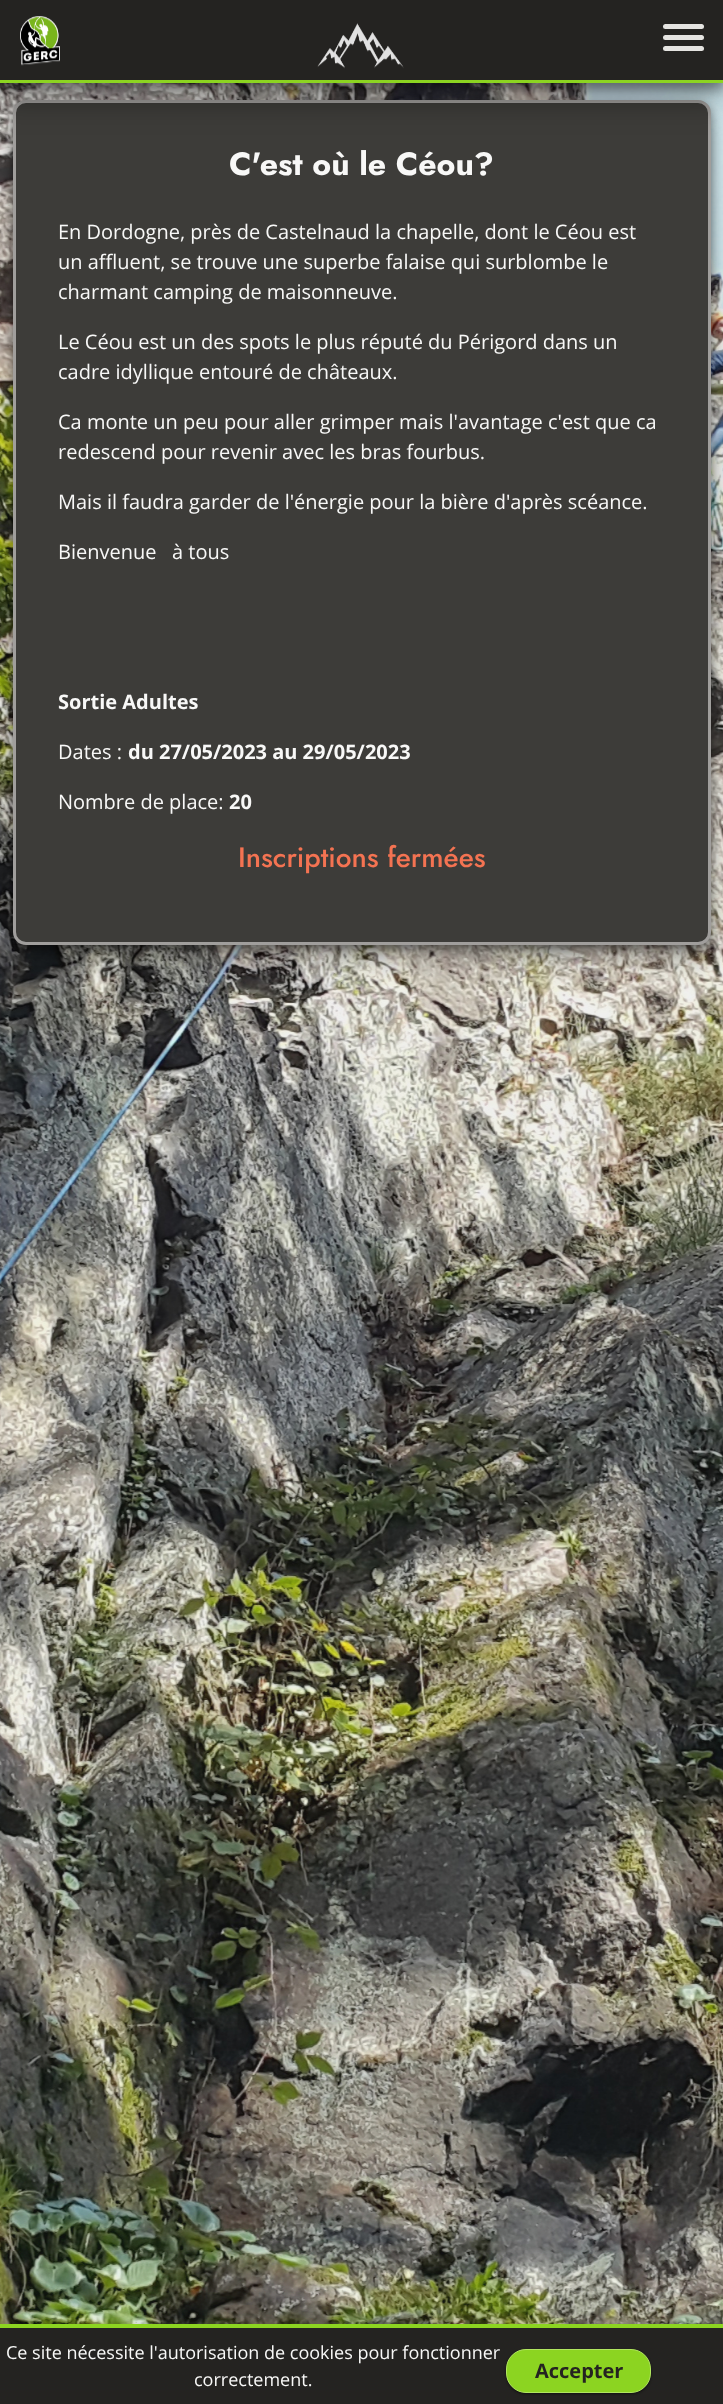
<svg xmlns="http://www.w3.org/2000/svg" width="723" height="2404">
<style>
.a{font:bold 32px Jost;fill:#f8f8f7}
.b{font:20px Open Sans;fill:#f8f8f7}
.c{font:bold 20px Open Sans;fill:#f8f8f7}
.d{font:500 28px Jost;fill:#f47352}
.e{font:18px Open Sans;fill:#f8f8f7}
.f{font:bold 20px Open Sans;fill:#242321}
</style>
<rect width="100%" height="100%" fill="#fff"/>
<image href="1.png" x="0" y="83" width="723" height="2241"/>
<rect fill="#00000066" filter="blur(4px)" x="13" y="104" width="698" height="845" rx="13"/>
<rect fill="#00000059" filter="blur(12.5px)" x="13" y="113" width="698" height="845" rx="13"/>
<rect fill="#3d3c39" stroke="#a09e9c" stroke-width="3" x="14.5" y="101.5" width="695" height="842" rx="11.5"/>
<path fill="#00000059" filter="blur(6px)" d="M0 6h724v83H0z"/>
<path fill="#00000059" filter="blur(15.5px)" d="M0 19h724v82H0z"/>
<path fill="#242321" d="M0 0h723v80H0z"/>
<path fill="#8cd421" d="M0 80h723v3H0z"/>
<image href="2.png" x="20" y="16" width="40" height="50"/>
<image href="3.png" x="317" y="23" width="87" height="46"/>
<rect fill="#e5e4e1" x="663" y="24" width="41" height="5" rx="2.5"/>
<rect fill="#e5e4e1" x="663" y="35" width="41" height="5" rx="2.5"/>
<rect fill="#e5e4e1" x="663" y="46" width="41" height="5" rx="2.5"/>
<path fill="#00000059" filter="blur(6px)" d="M0 2330h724v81H0z"/>
<path fill="#00000059" filter="blur(15.5px)" d="M0 2343h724v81H0z"/>
<path fill="#242321" d="M0 2328h723v76H0z"/>
<path fill="#8cd421" d="M0 2324h723v4H0z"/>
<rect fill="#00000080" filter="blur(1px)" x="506" y="2350" width="145" height="44" rx="20"/>
<rect fill="#8cd421" stroke="#b1e660" x="506.5" y="2349.5" width="144" height="43" rx="19.5"/>
<text class="a" x="229" y="175">C'est où le Céou?</text>
<text class="b" x="58" y="239">En Dordogne, près de Castelnaud la chapelle, dont le Céou est</text>
<text class="b" x="58" y="269">un affluent, se trouve une superbe falaise qui surblombe le</text>
<text class="b" x="58" y="299">charmant camping de maisonneuve.</text>
<text class="b" x="58" y="349">Le Céou est un des spots le plus réputé du Périgord dans un</text>
<text class="b" x="58" y="379">cadre idyllique entouré de châteaux.</text>
<text class="b" x="58" y="429">Ca monte un peu pour aller grimper mais l'avantage c'est que ca</text>
<text class="b" x="58" y="459">redescend pour revenir avec les bras fourbus.</text>
<text class="b" x="58" y="509">Mais il faudra garder de l'énergie pour la bière d'après scéance.</text>
<text class="b" xml:space="preserve" x="58" y="559">Bienvenue   à tous</text>
<text class="c" x="58" y="709">Sortie Adultes</text>
<text class="b" x="58" y="759">Dates :</text>
<text class="c" x="128" y="759">du 27/05/2023 au 29/05/2023</text>
<text class="b" x="58" y="809">Nombre de place:</text>
<text class="c" x="229" y="809">20</text>
<text class="d" x="238" y="867">Inscriptions fermées</text>
<text class="e" x="6" y="2359">Ce site nécessite l'autorisation de cookies pour fonctionner</text>
<text class="e" x="194" y="2386">correctement.</text>
<text class="f" x="535" y="2378">Accepter</text>
</svg>
